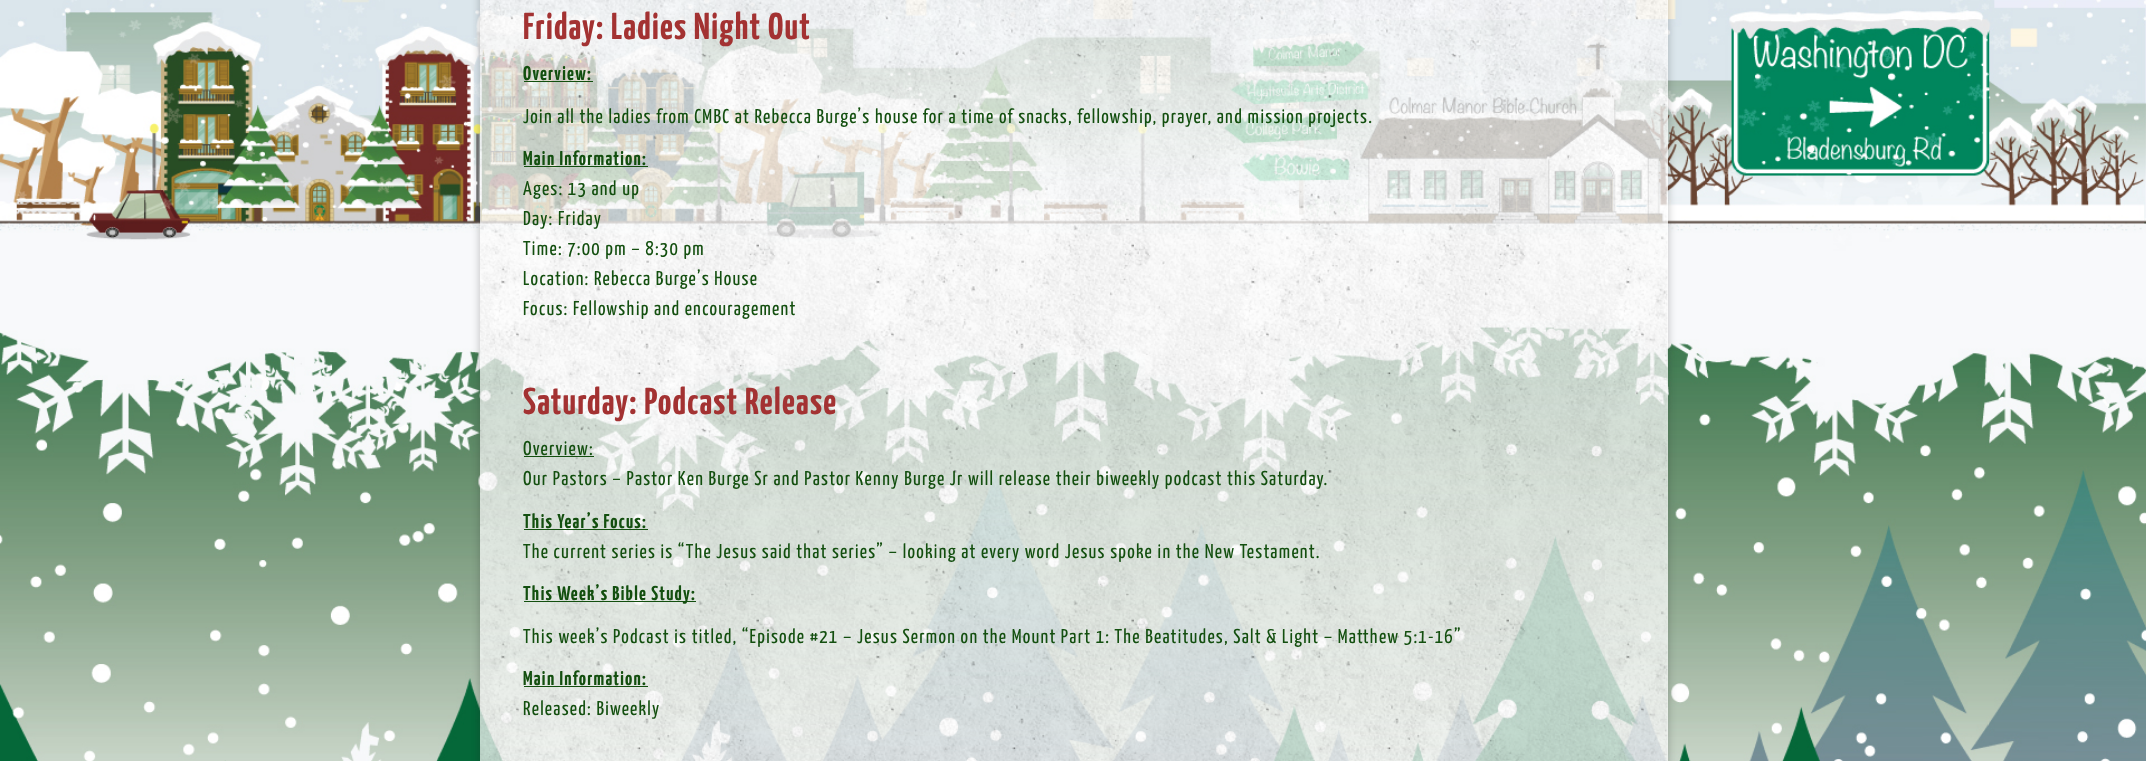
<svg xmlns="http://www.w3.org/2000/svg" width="2146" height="761">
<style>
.a{font:bold 37.5px Yanone Kaffeesatz;letter-spacing:1.25px;fill:#a33232}
.b{font:bold 20px Yanone Kaffeesatz;letter-spacing:1.25px;fill:#134f0f}
.c{font:20px Yanone Kaffeesatz;letter-spacing:1.25px;fill:#134f0f}
</style>
<defs>
<clipPath id="clip1"><path d="M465 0h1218v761h-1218zm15-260h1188v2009h-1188z" clip-rule="evenodd"/></clipPath>
</defs>
<rect width="100%" height="100%" fill="#fff"/>
<image href="1.png" x="0" y="0" width="2146" height="761"/>
<g clip-path="url(#clip1)">
<path fill="#1e1e1e47" filter="blur(4.5px)" d="M480 -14h1188v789H480z"/>
</g>
<path fill="#ffffffc2" d="M480 0h1188v761H480z"/>
<image href="2.png" x="480" y="0" width="1188" height="761"/>
<path fill="#134f0f" d="M524 81h69v1H524z"/>
<path fill="#134f0f" d="M524 166h124v1H524z"/>
<path fill="#134f0f" d="M524 456h70v1H524z"/>
<path fill="#134f0f" d="M524 529h124v1H524z"/>
<path fill="#134f0f" d="M524 601h172v1H524z"/>
<path fill="#134f0f" d="M524 686h124v1H524z"/>
<text class="a" x="523" y="39">Friday: Ladies Night Out</text>
<text class="b" x="523" y="80">Overview:</text>
<text class="c" x="523" y="123">Join all the ladies from CMBC at Rebecca Burge’s house for a time of snacks, fellowship, prayer, and mission projects.</text>
<text class="b" x="523" y="165">Main Information:</text>
<text class="c" x="523" y="195">Ages: 13 and up</text>
<text class="c" x="523" y="225">Day: Friday</text>
<text class="c" x="523" y="255">Time: 7:00 pm – 8:30 pm</text>
<text class="c" x="523" y="285">Location: Rebecca Burge’s House</text>
<text class="c" x="523" y="315">Focus: Fellowship and encouragement</text>
<text class="a" x="523" y="414">Saturday: Podcast Release</text>
<text class="c" x="523" y="455">Overview:</text>
<text class="c" x="523" y="485">Our Pastors – Pastor Ken Burge Sr and Pastor Kenny Burge Jr will release their biweekly podcast this Saturday.</text>
<text class="b" x="523" y="528">This Year’s Focus:</text>
<text class="c" x="523" y="558">The current series is “The Jesus said that series” – looking at every word Jesus spoke in the New Testament.</text>
<text class="b" x="523" y="600">This Week’s Bible Study:</text>
<text class="c" x="523" y="643">This week’s Podcast is titled, “Episode #21 – Jesus Sermon on the Mount Part 1: The Beatitudes, Salt &amp; Light – Matthew 5:1-16”</text>
<text class="b" x="523" y="685">Main Information:</text>
<text class="c" x="523" y="715">Released: Biweekly</text>
</svg>
